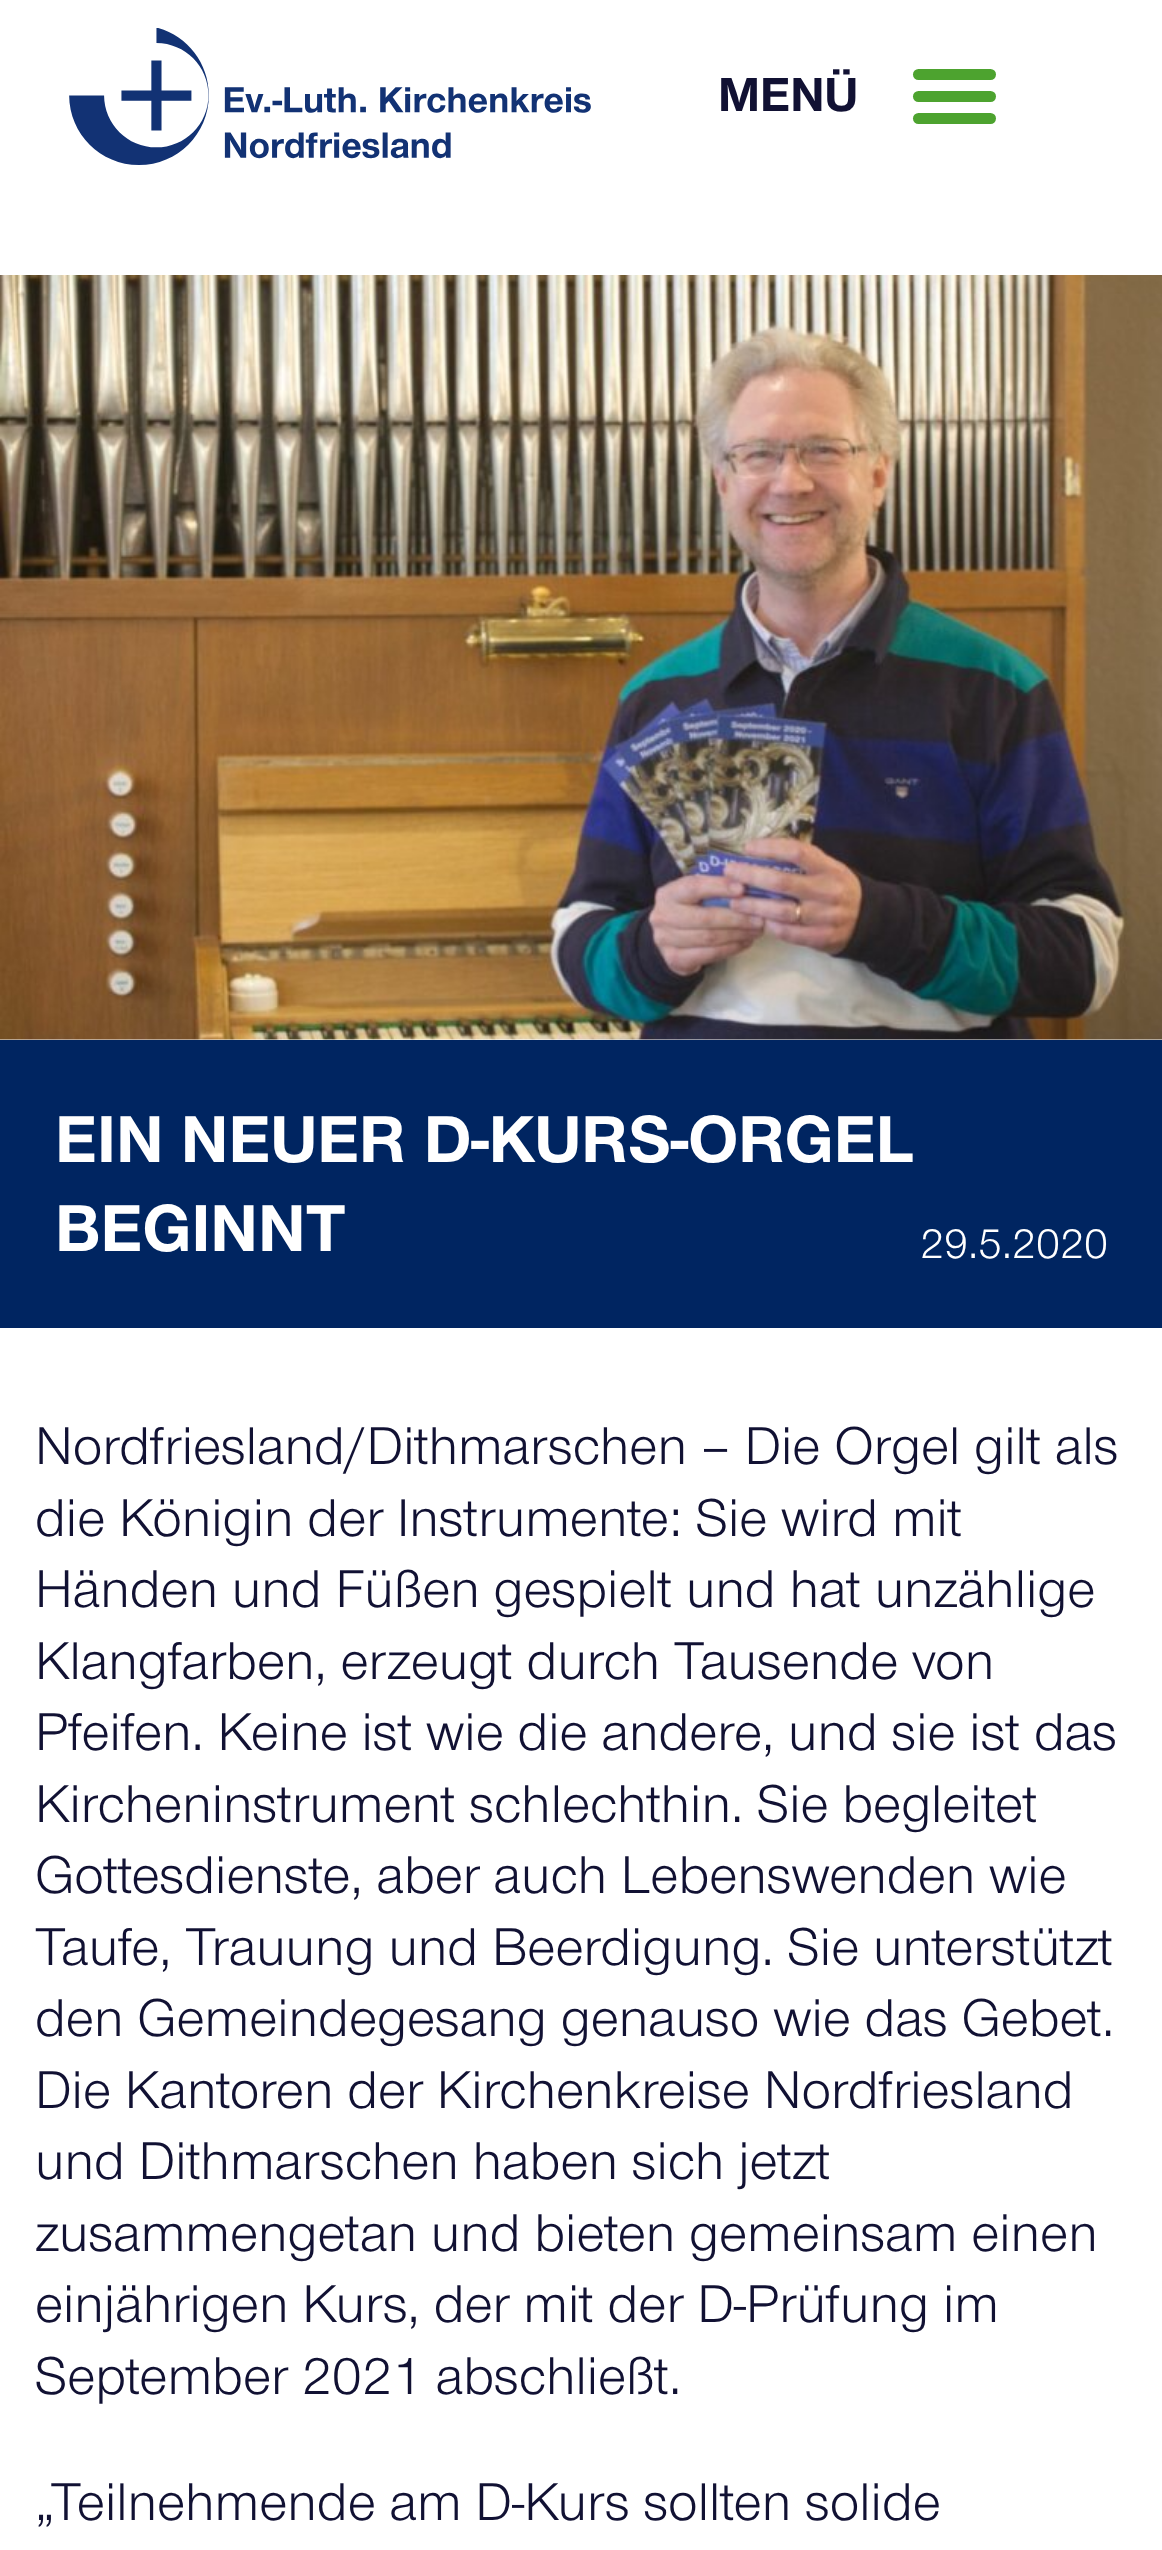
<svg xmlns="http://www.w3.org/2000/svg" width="1162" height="2550">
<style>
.a{font:bold 49.5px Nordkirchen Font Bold;fill:#113}
.b{font:bold 68.75px Nordkirchen Font Bold;fill:#fff}
.c{font:44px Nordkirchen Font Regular;fill:#fff}
.d{font:55px Nordkirchen Font Regular;fill:#113}
</style>
<rect width="100%" height="100%" fill="#fff"/>
<image href="1.png" x="69" y="28" width="522" height="137"/>
<rect fill="#4da32f" x="913" y="69" width="83" height="11" rx="5.5"/>
<rect fill="#4da32f" x="913" y="91" width="83" height="11" rx="5.5"/>
<rect fill="#4da32f" x="913" y="113" width="83" height="11" rx="5.5"/>
<image href="2.png" x="0" y="275" width="1162" height="765"/>
<path fill="#002561" d="M0 1040h1162v288H0z"/>
<text class="a" x="718" y="111">MENÜ</text>
<text class="b" x="55" y="1162">EIN NEUER D-KURS-ORGEL</text>
<text class="b" x="55" y="1251">BEGINNT</text>
<text class="c" x="920" y="1258">29.5.2020</text>
<text class="d" x="35" y="1464">Nordfriesland/Dithmarschen – Die Orgel gilt als</text>
<text class="d" x="35" y="1536">die Königin der Instrumente: Sie wird mit</text>
<text class="d" x="35" y="1607">Händen und Füßen gespielt und hat unzählige</text>
<text class="d" x="35" y="1679">Klangfarben, erzeugt durch Tausende von</text>
<text class="d" x="35" y="1750">Pfeifen. Keine ist wie die andere, und sie ist das</text>
<text class="d" x="35" y="1822">Kircheninstrument schlechthin. Sie begleitet</text>
<text class="d" x="35" y="1893">Gottesdienste, aber auch Lebenswenden wie</text>
<text class="d" x="35" y="1965">Taufe, Trauung und Beerdigung. Sie unterstützt</text>
<text class="d" x="35" y="2036">den Gemeindegesang genauso wie das Gebet.</text>
<text class="d" x="35" y="2108">Die Kantoren der Kirchenkreise Nordfriesland</text>
<text class="d" x="35" y="2179">und Dithmarschen haben sich jetzt</text>
<text class="d" x="35" y="2251">zusammengetan und bieten gemeinsam einen</text>
<text class="d" x="35" y="2322">einjährigen Kurs, der mit der D-Prüfung im</text>
<text class="d" x="35" y="2394">September 2021 abschließt.</text>
<text class="d" x="35" y="2520">„Teilnehmende am D-Kurs sollten solide</text>
</svg>
